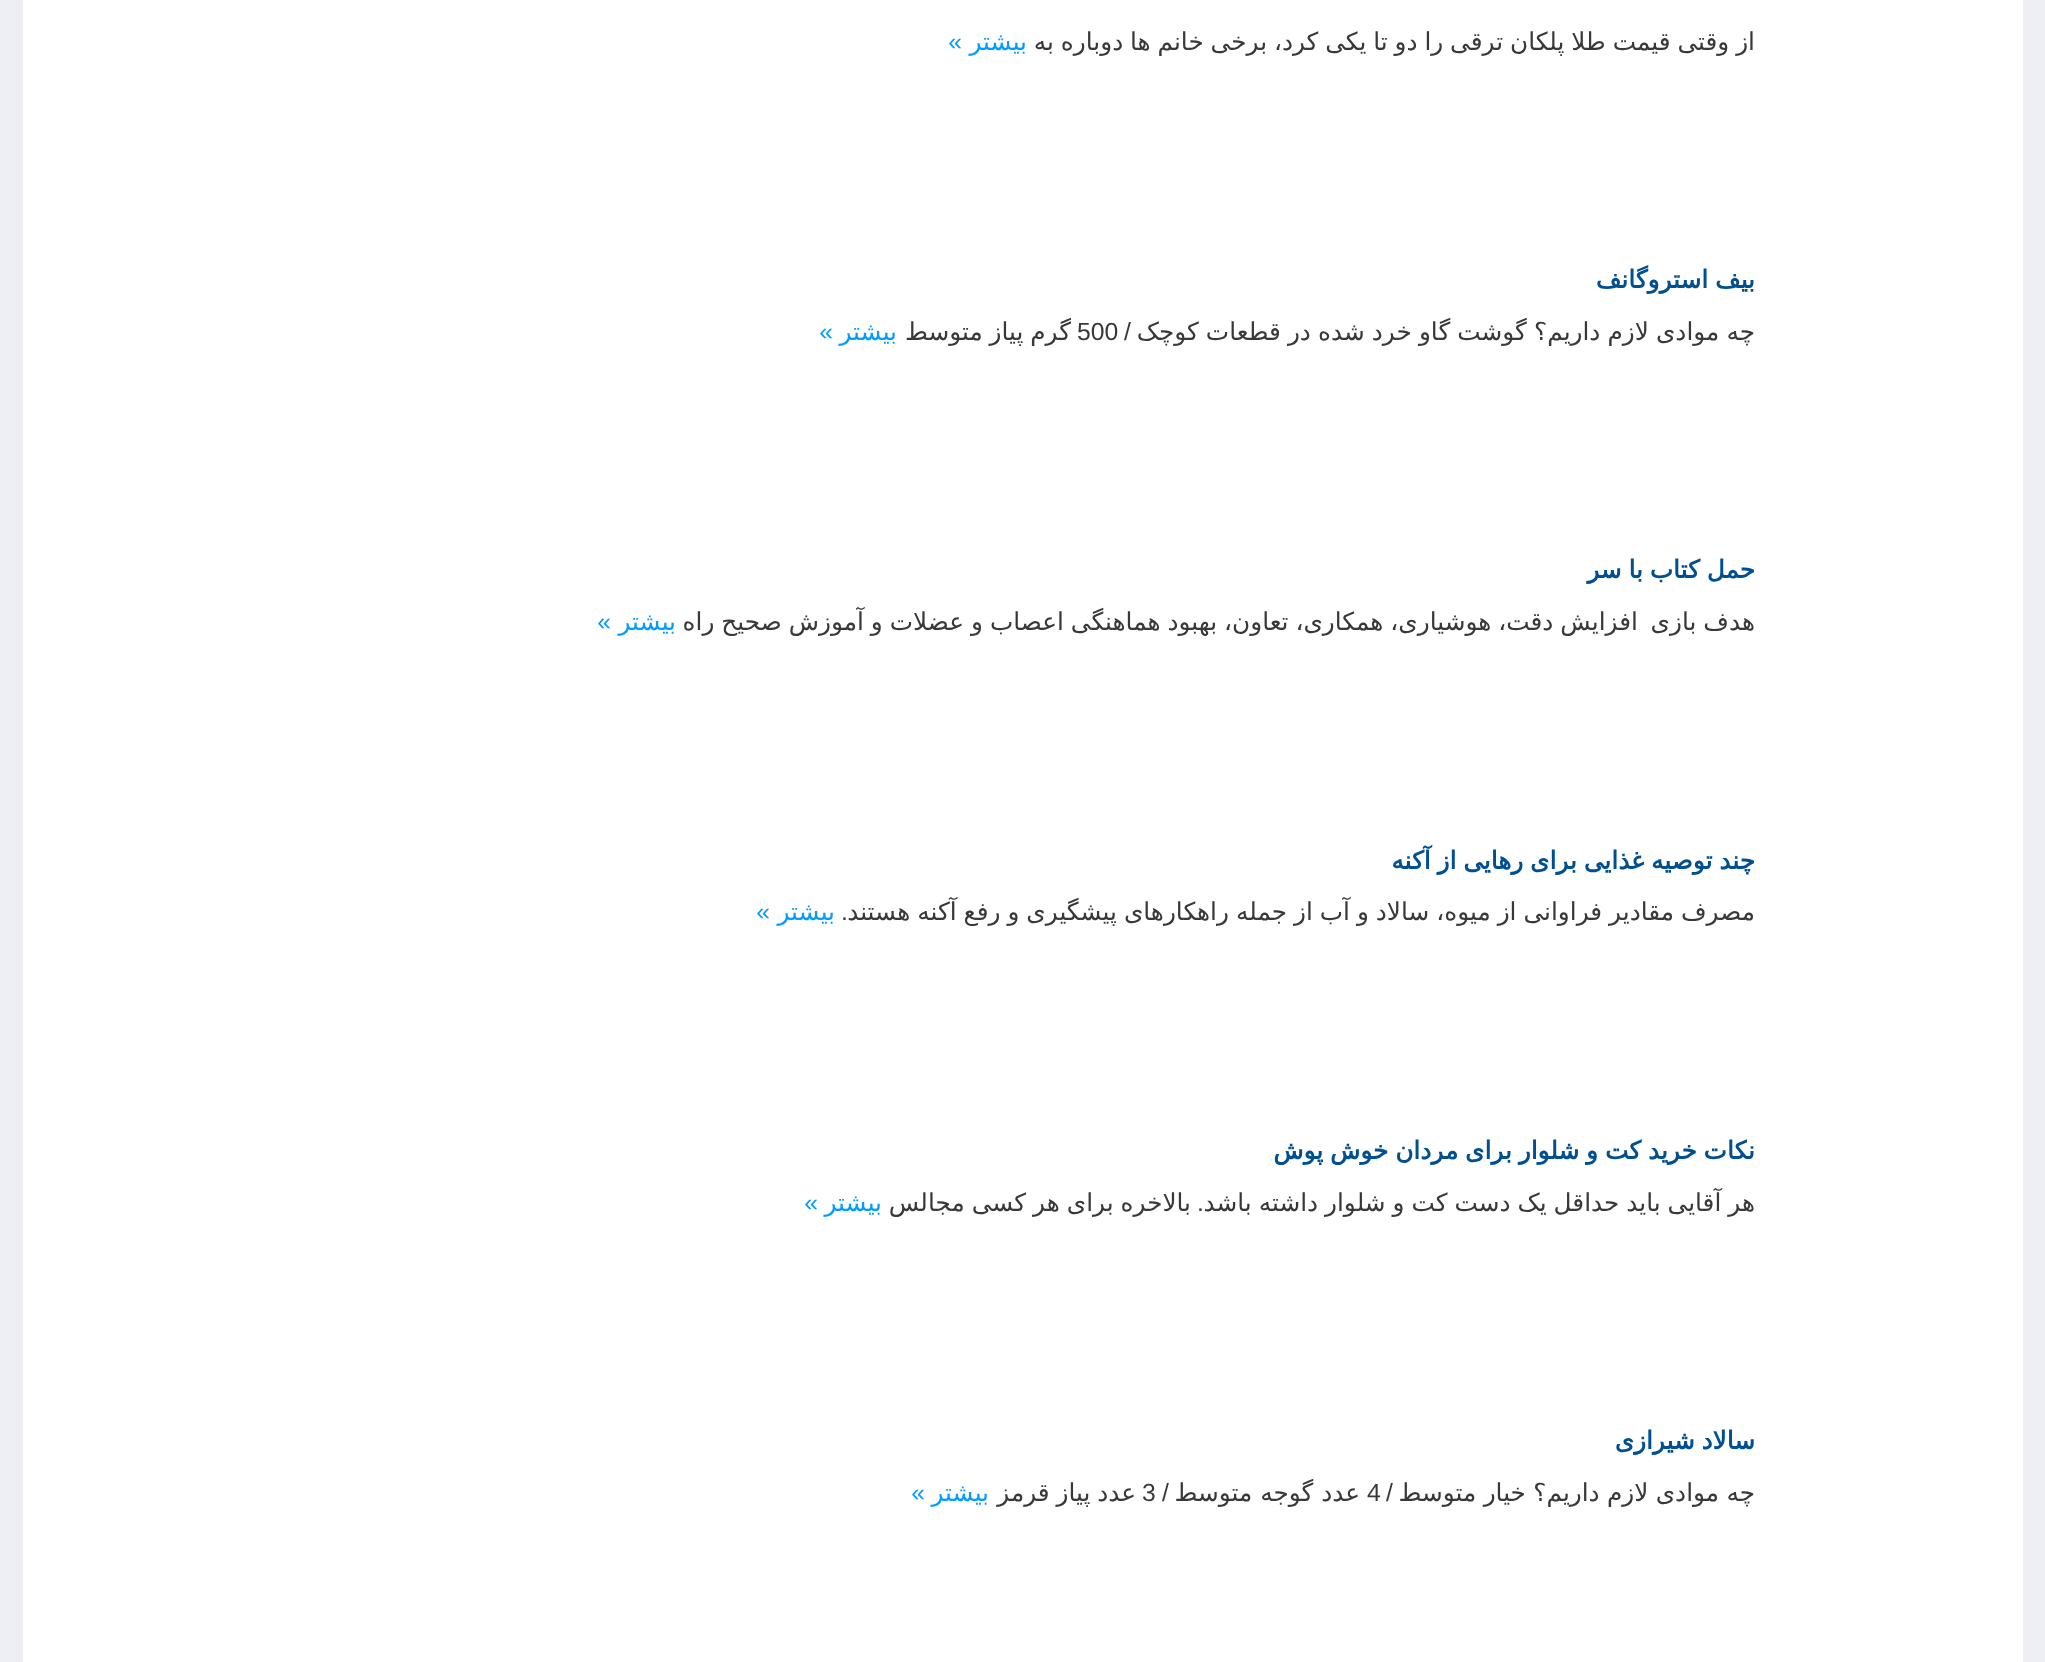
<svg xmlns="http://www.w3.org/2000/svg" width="2045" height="1662">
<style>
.a{font:24.75px DejaVu Sans;direction:rtl;fill:#383838}
.b{font:24.75px DejaVu Sans;direction:rtl;fill:#009cff}
.c{font:24.75px Liberation Sans;direction:rtl;fill:#009cff}
.d{font:bold 24.75px DejaVu Sans;direction:rtl;fill:#004f90}
.e{font:24.75px Liberation Sans;direction:rtl;fill:#383838}
.f{font:24.75px Liberation Sans;fill:#383838}
</style>
<rect width="100%" height="100%" fill="#eeeef5"/>
<path fill="#fff" d="M23 0h2000v1662H23z"/>
<text class="a" x="1755" y="50" word-spacing="-1">از وقتی قیمت طلا پلکان ترقی را دو تا یکی کرد، برخی خانم ها دوباره به</text>
<text class="b" x="1027" y="50">بیشتر</text>
<text class="c" x="962" y="50">»</text>
<text class="d" x="1755" y="288" word-spacing="-1">بیف استروگانف</text>
<text class="a" x="1755" y="340" word-spacing="-0.75">چه موادی لازم داریم؟ گوشت گاو خرد شده در قطعات کوچک</text>
<text class="e" x="1131" y="340">/</text>
<text class="f" x="1077" y="340">500</text>
<text class="a" x="1071" y="340" word-spacing="-1">گرم پیاز متوسط</text>
<text class="b" x="897" y="340">بیشتر</text>
<text class="c" x="833" y="340">»</text>
<text class="d" x="1755" y="578" word-spacing="-1">حمل کتاب با سر</text>
<text class="a" x="1755" y="630" word-spacing="-0.9">هدف بازی</text>
<text class="a" x="1638" y="630" word-spacing="-0.9">افزایش دقت، هوشیاری، همکاری، تعاون، بهبود هماهنگی اعصاب و عضلات و آموزش صحیح راه</text>
<text class="b" x="676" y="630">بیشتر</text>
<text class="c" x="611" y="630">»</text>
<text class="d" x="1755" y="869" word-spacing="-1">چند توصیه غذایی برای رهایی از آکنه</text>
<text class="a" x="1755" y="920" word-spacing="-0.9">مصرف مقادیر فراوانی از میوه، سالاد و آب از جمله راهکارهای پیشگیری و رفع آکنه هستند</text>
<text class="e" x="848" y="920">.</text>
<text class="b" x="835" y="920">بیشتر</text>
<text class="c" x="770" y="920">»</text>
<text class="d" x="1755" y="1159" word-spacing="-1">نکات خرید کت و شلوار برای مردان خوش پوش</text>
<text class="a" x="1755" y="1211" word-spacing="-0.9">هر آقایی باید حداقل یک دست کت و شلوار داشته باشد</text>
<text class="e" x="1204" y="1211">.</text>
<text class="a" x="1191" y="1211" word-spacing="-0.9">بالاخره برای هر کسی مجالس</text>
<text class="b" x="882" y="1211">بیشتر</text>
<text class="c" x="818" y="1211">»</text>
<text class="d" x="1755" y="1449" word-spacing="-1">سالاد شیرازی</text>
<text class="a" x="1755" y="1501" word-spacing="-0.5">چه موادی لازم داریم؟ خیار متوسط</text>
<text class="e" x="1393" y="1501">/</text>
<text class="f" x="1367" y="1501">4</text>
<text class="a" x="1360" y="1501">عدد گوجه متوسط</text>
<text class="e" x="1169" y="1501">/</text>
<text class="f" x="1142" y="1501">3</text>
<text class="a" x="1136" y="1501" word-spacing="-1">عدد پیاز قرمز</text>
<text class="b" x="989" y="1501">بیشتر</text>
<text class="c" x="925" y="1501">»</text>
</svg>
